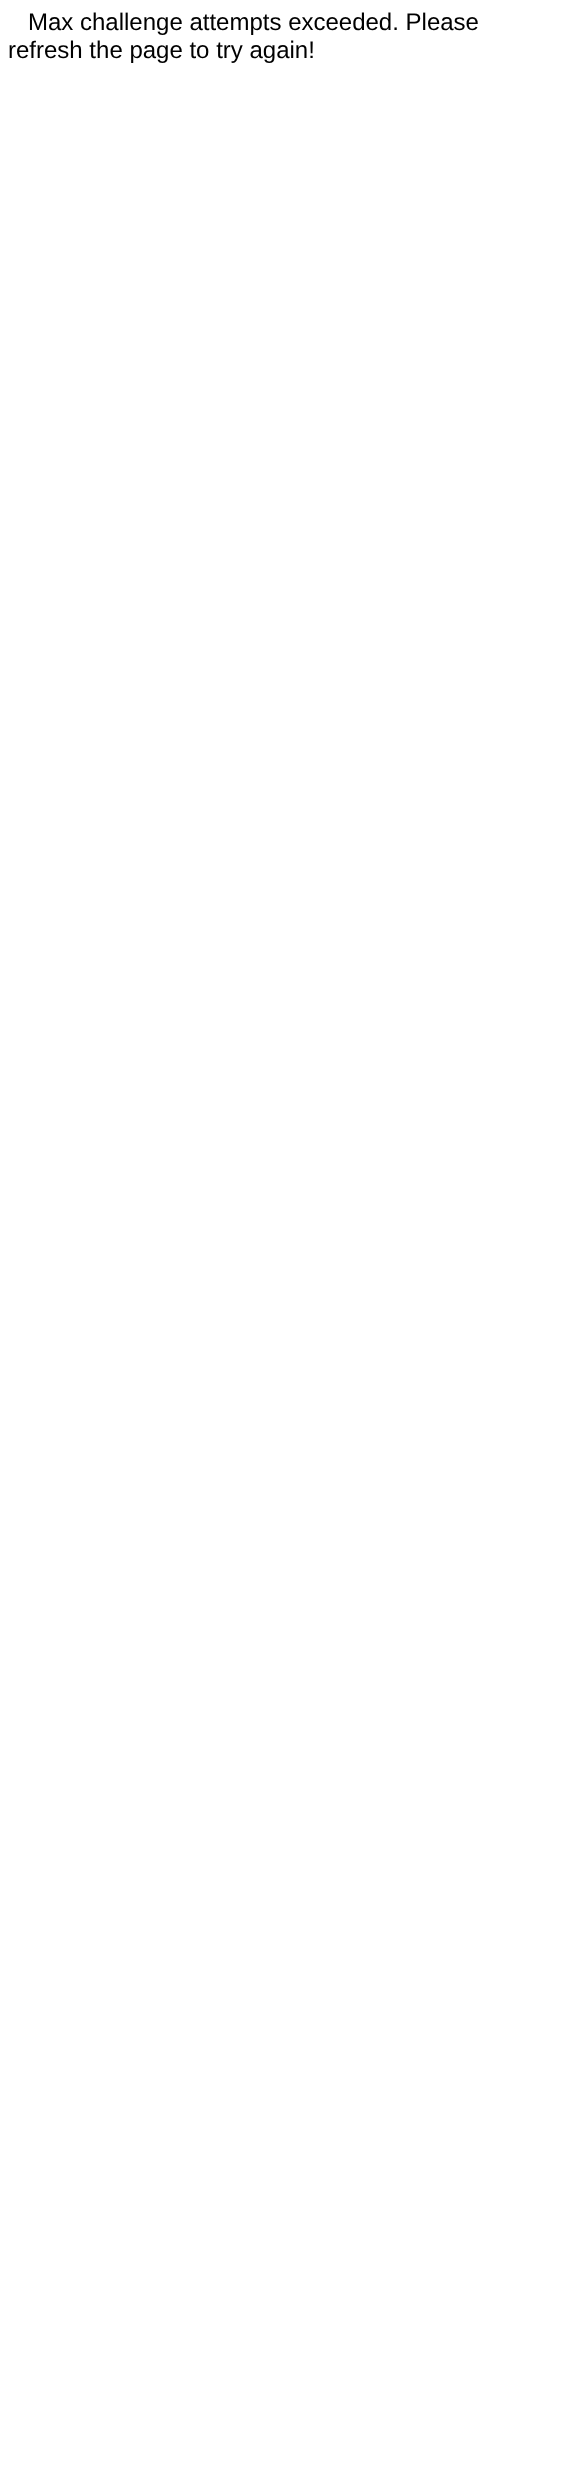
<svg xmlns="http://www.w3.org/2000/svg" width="567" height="2488">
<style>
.a{font:24px Liberation Sans;fill:#000}
</style>
<rect width="100%" height="100%" fill="#fff"/>
<text class="a" x="28" y="30">Max challenge attempts exceeded. Please</text>
<text class="a" x="8" y="58">refresh the page to try again!</text>
</svg>
